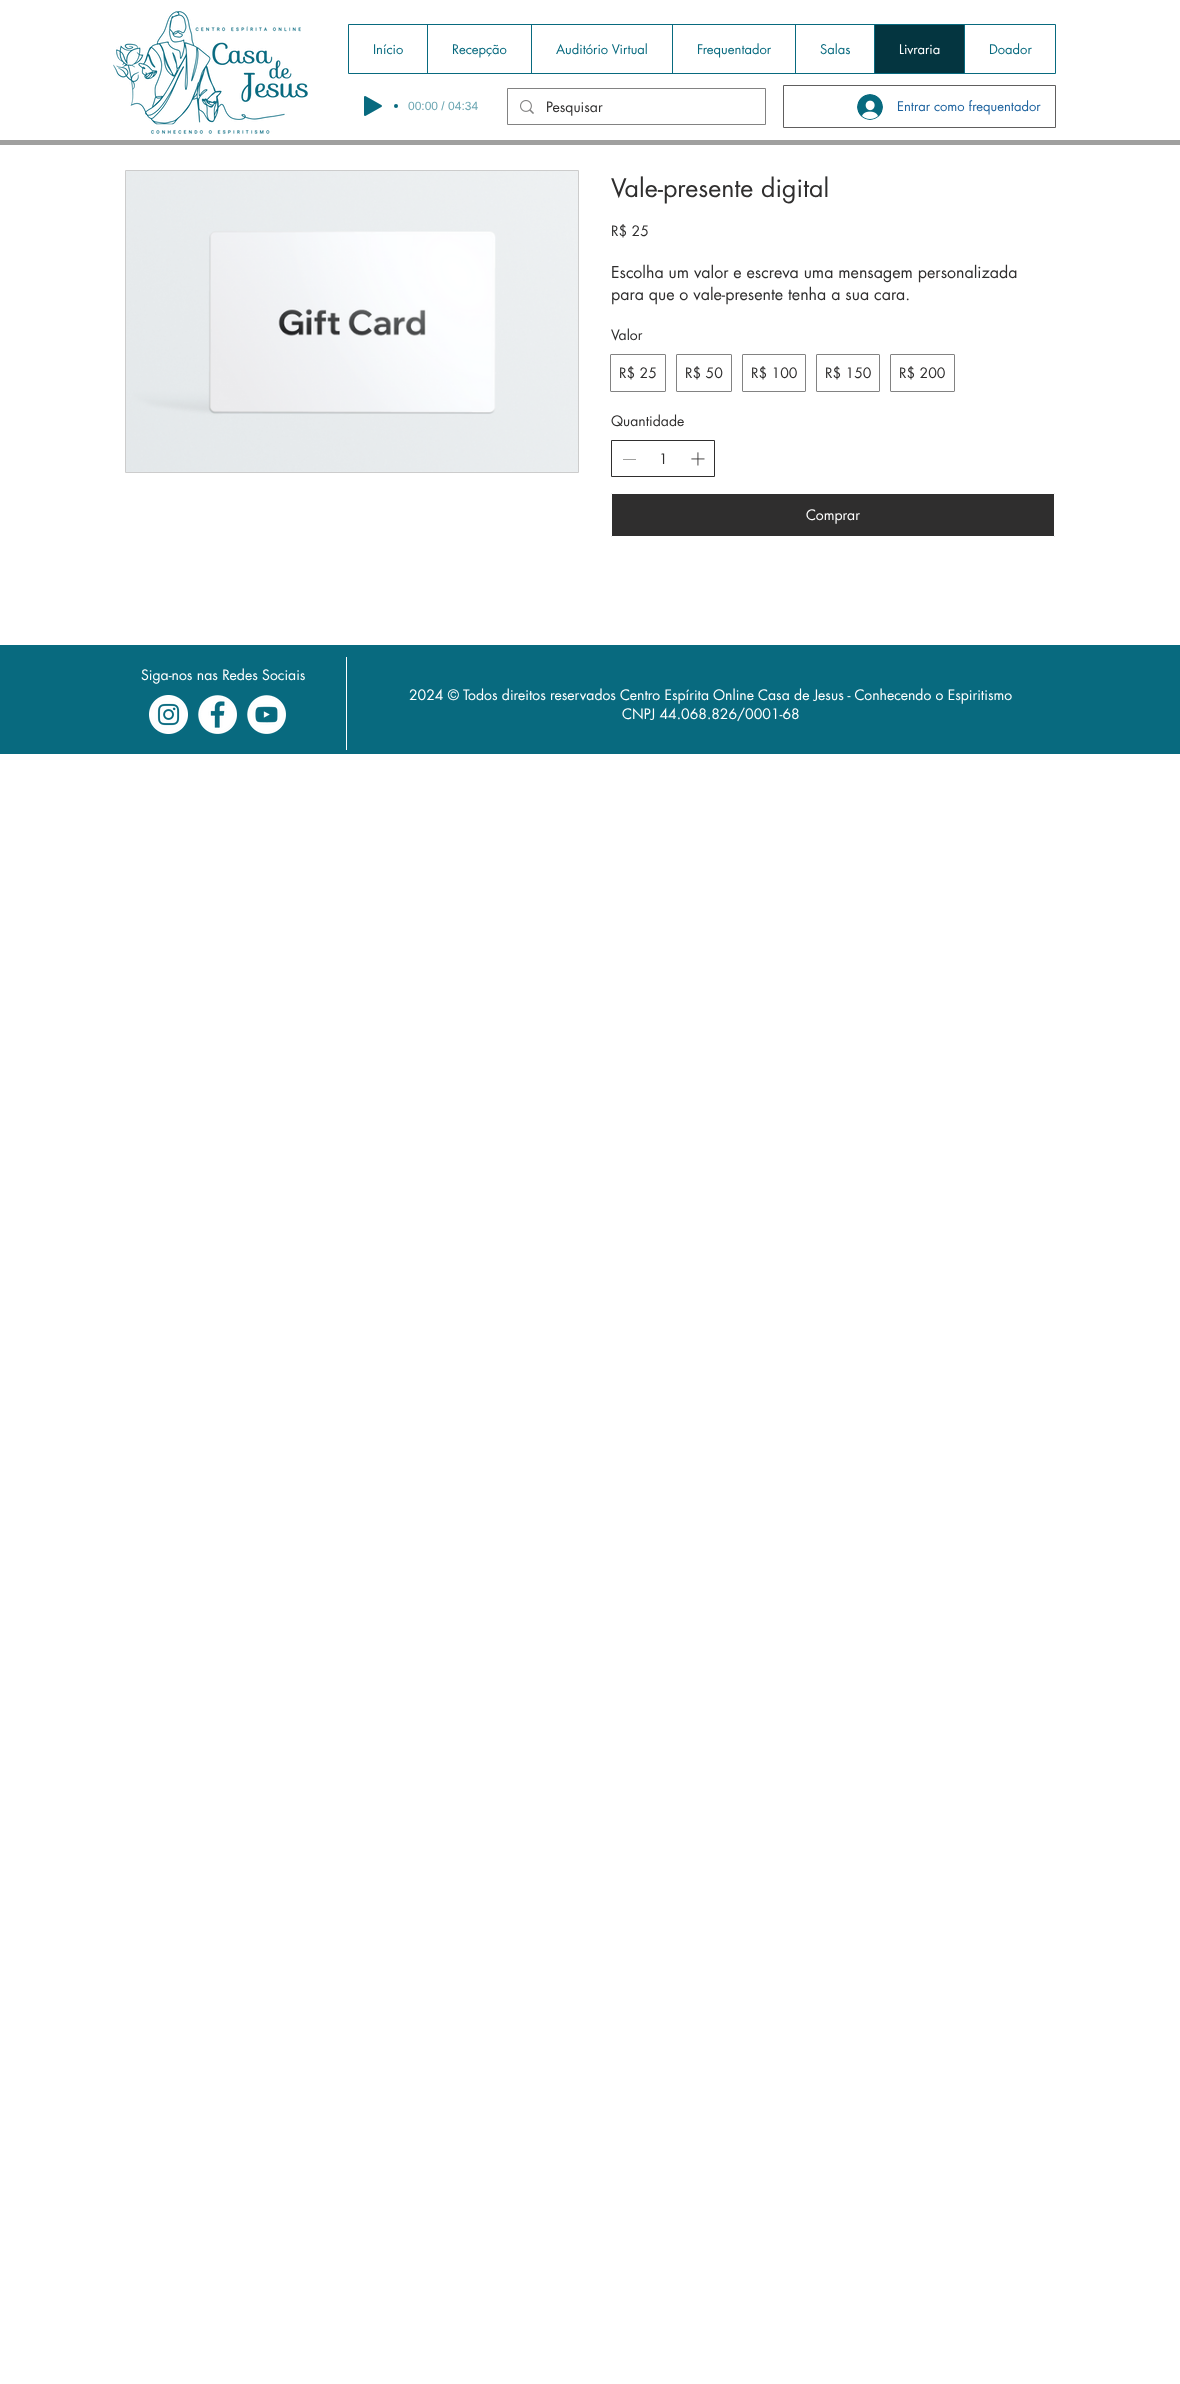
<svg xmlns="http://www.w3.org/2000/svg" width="1180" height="2384">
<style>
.a{font:13px futura;fill:#086a7f}
.b{font:13px futura;fill:#fff}
.c{font:12px Liberation Sans;fill:#6ba6b2}
.d{font:14px futura;fill:#2f2e2e}
.e{font:13px futura;fill:#1c629e}
.f{font:25px futura;fill:#2f2e2e}
.g{font:16px futura;fill:#2f2e2e}
.h{font:14px futura;fill:#fff}
</style>
<rect width="100%" height="100%" fill="#fff"/>
<image href="1.png" x="113" y="11" width="195" height="123"/>
<path fill="none" stroke="#086a7f" d="M348.5 24.5h707v49H348.5z"/>
<path fill="#086a7f" d="M427 25h1v48H427z"/>
<path fill="#086a7f" d="M531 25h1v48H531z"/>
<path fill="#086a7f" d="M672 25h1v48H672z"/>
<path fill="#086a7f" d="M795 25h1v48H795z"/>
<path fill="#043540" d="M875 25h89v48H875z"/>
<path fill="#086a7f" d="M874 25h1v48H874z"/>
<path fill="#086a7f" d="M964 25h1v48H964z"/>
<image href="2.png" x="364" y="96" width="18" height="20"/>
<circle fill="#086a7f" cx="396" cy="106" r="2"/>
<path fill="none" stroke="#828282" d="M507.5 88.5h258v36H507.5z"/>
<image href="3.png" x="520" y="100" width="14" height="14"/>
<path fill="none" stroke="#605e5e" d="M783.5 85.5h272v42H783.5z"/>
<image href="4.png" x="857" y="94" width="26" height="26"/>
<path fill="#a0a09f" d="M0 140h1180v5H0z"/>
<path fill="none" stroke="#ccc" d="M125.5 170.5h453v302H125.5z"/>
<image href="5.png" x="126" y="171" width="452" height="301"/>
<rect fill="none" stroke="#828282" x="610.5" y="354.5" width="55" height="37" rx="0.5"/>
<rect fill="none" stroke="#828282" x="676.5" y="354.5" width="55" height="37" rx="0.5"/>
<rect fill="none" stroke="#828282" x="742.5" y="354.5" width="63" height="37" rx="0.5"/>
<rect fill="none" stroke="#828282" x="816.5" y="354.5" width="63" height="37" rx="0.5"/>
<rect fill="none" stroke="#828282" x="890.5" y="354.5" width="64" height="37" rx="0.5"/>
<path fill="none" stroke="#2f2e2e" d="M611.5 440.5h103v36H611.5z"/>
<path fill="#a0a09f" d="M623 459h13v1H623z"/>
<image href="6.png" x="691" y="452" width="14" height="14"/>
<rect fill="#2f2e2e" stroke="#fff" x="611.5" y="493.5" width="443" height="43" rx="0.5"/>
<path fill="#086a7f" d="M0 645h1180v109H0z"/>
<path fill="#fff" d="M346 657h1v93H346z"/>
<image href="7.png" x="149" y="695" width="39" height="39"/>
<image href="8.png" x="198" y="695" width="39" height="39"/>
<image href="9.png" x="247" y="695" width="39" height="39"/>
<text class="a" x="373" y="54">Início</text>
<text class="a" x="452" y="54">Recepção</text>
<text class="a" x="556" y="54">Auditório Virtual</text>
<text class="a" x="697" y="54">Frequentador</text>
<text class="a" x="820" y="54">Salas</text>
<text class="b" x="899" y="54">Livraria</text>
<text class="a" x="989" y="54">Doador</text>
<text class="c" x="408" y="110">00:00 / 04:34</text>
<text class="d" x="546" y="112">Pesquisar</text>
<text class="e" x="897" y="111">Entrar como frequentador</text>
<text class="f" x="611" y="197">Vale-presente digital</text>
<text class="d" x="611" y="236">R$ 25</text>
<text class="g" x="611" y="278">Escolha um valor e escreva uma mensagem personalizada</text>
<text class="g" x="611" y="300">para que o vale-presente tenha a sua cara.</text>
<text class="d" x="611" y="340">Valor</text>
<text class="d" x="619" y="378">R$ 25</text>
<text class="d" x="685" y="378">R$ 50</text>
<text class="d" x="751" y="378">R$ 100</text>
<text class="d" x="825" y="378">R$ 150</text>
<text class="d" x="899" y="378">R$ 200</text>
<text class="d" x="611" y="426">Quantidade</text>
<text class="d" x="659" y="464">1</text>
<text class="h" x="806" y="520">Comprar</text>
<text class="h" x="141" y="680">Siga-nos nas Redes Sociais</text>
<text class="h" x="409" y="700">2024 © Todos direitos reservados Centro Espírita Online Casa de Jesus - Conhecendo o Espiritismo</text>
<text class="h" x="622" y="719">CNPJ 44.068.826/0001-68</text>
</svg>
